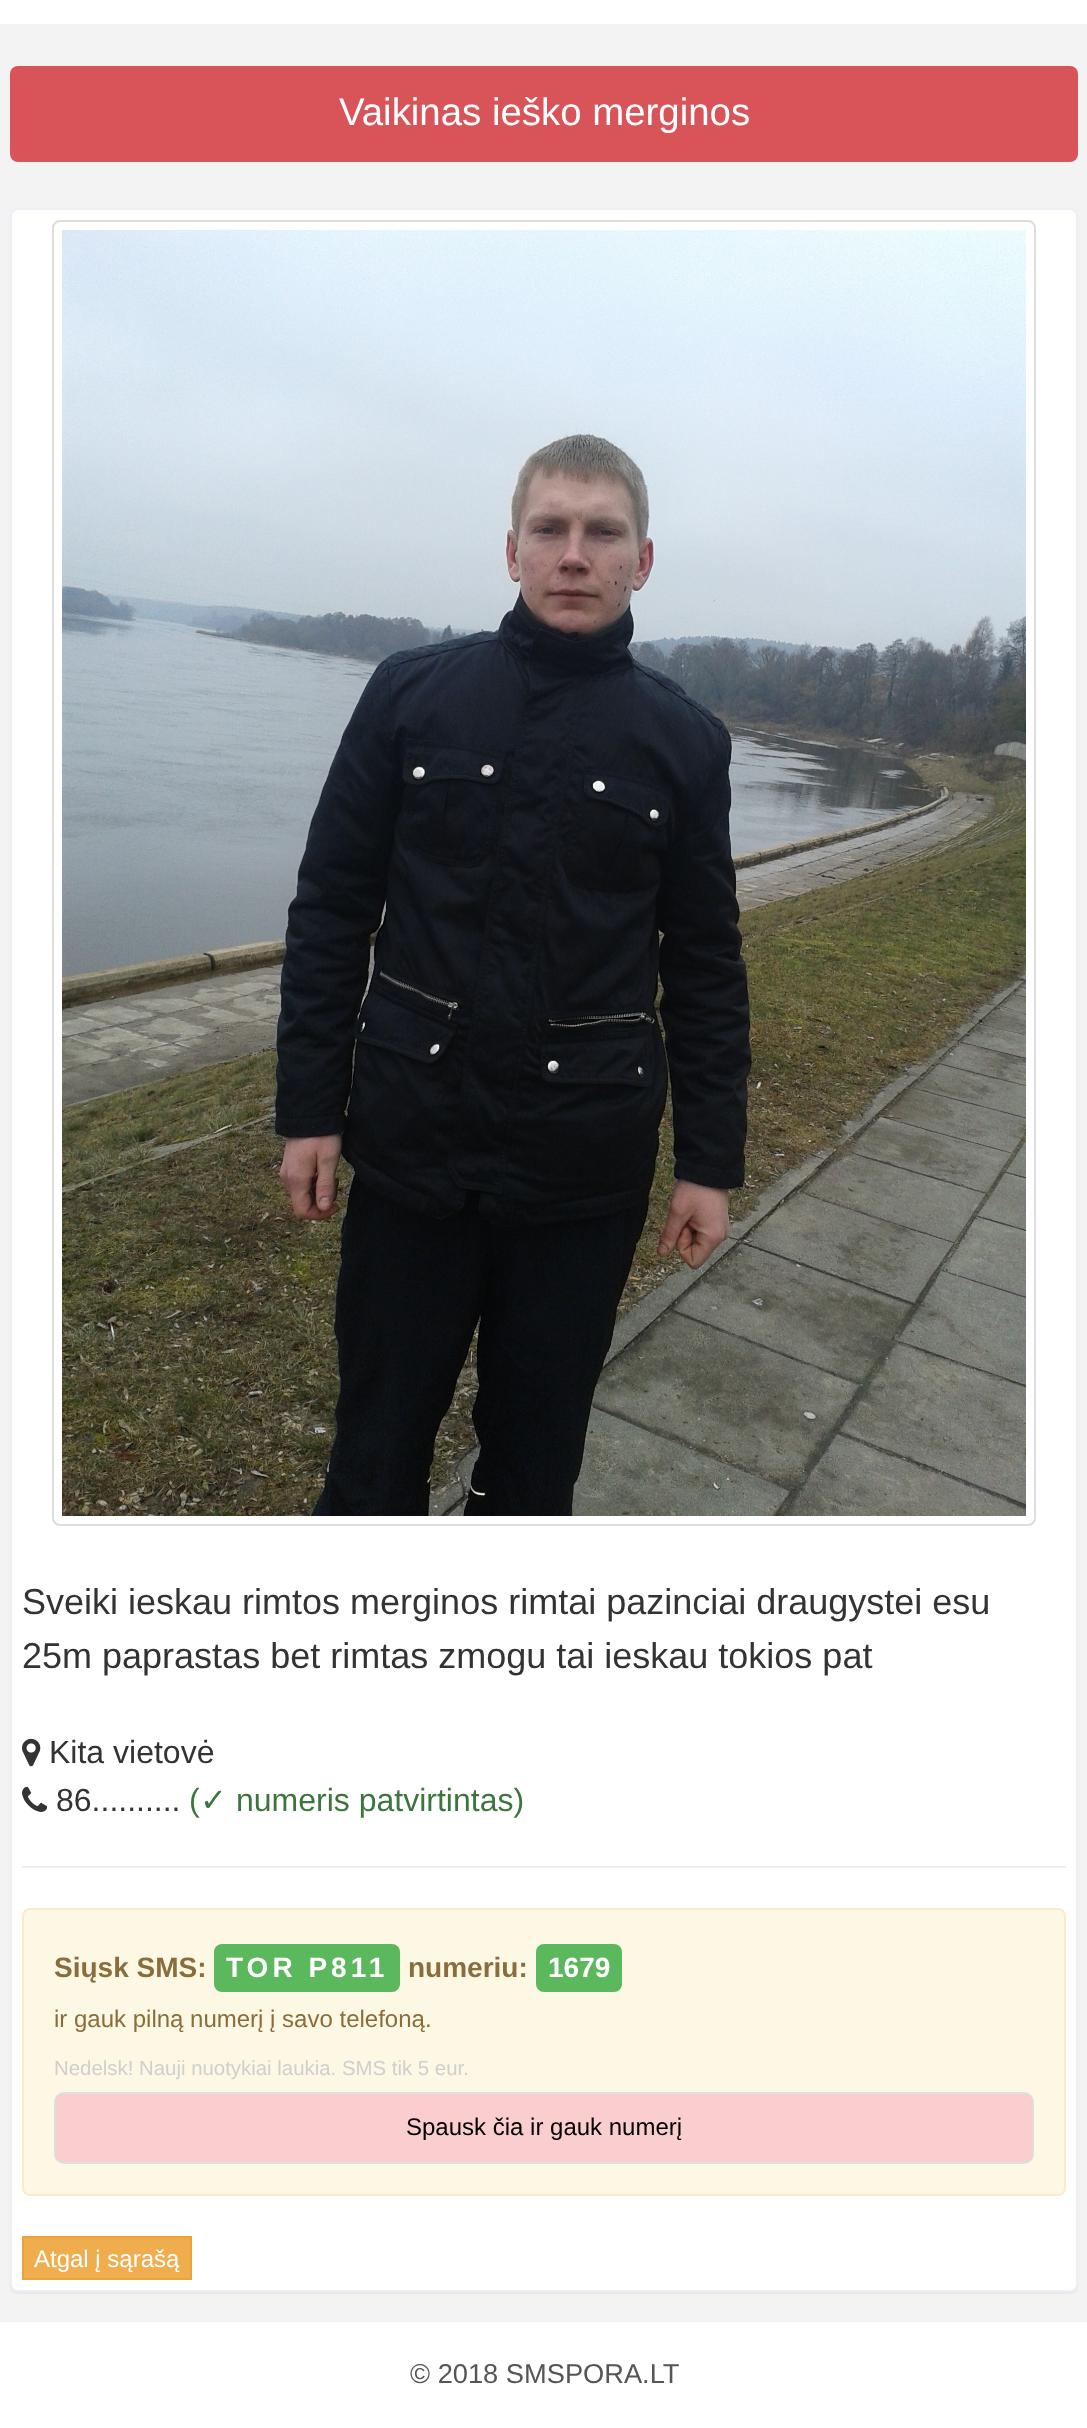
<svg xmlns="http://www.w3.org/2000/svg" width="1087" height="2428">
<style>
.a{font:38.4px Liberation Sans;fill:#fff}
.b{font:36px Liberation Sans;fill:#333}
.c{font:32px Liberation Sans;fill:#333}
.d{font:32px Liberation Sans;fill:#3c763d}
.e{font:32px DejaVu Sans;fill:#3c763d}
.f{font:bold 28px Liberation Sans;fill:#8a6d3b}
.g{font:bold 28px Liberation Sans;letter-spacing:4px;fill:#fff}
.h{font:bold 28px Liberation Sans;fill:#fff}
.i{font:24px Liberation Sans;fill:#8a6d3b}
.j{font:20.4px Liberation Sans;fill:#cfcfcf}
.k{font:24px Liberation Sans;fill:#000}
.l{font:24px Liberation Sans;fill:#fff}
.m{font:27.25px Liberation Sans;fill:#555}
</style>
<rect width="100%" height="100%" fill="#fff"/>
<path fill="#f3f3f4" d="M0 24h1087v2298H0z"/>
<rect fill="#d95459" x="10" y="66" width="1068" height="96" rx="8"/>
<rect fill="#0000000d" filter="blur(1px)" x="10" y="210" width="1068" height="2084" rx="8"/>
<rect fill="#fff" stroke="#ebeff6" stroke-width="2" x="11" y="209" width="1066" height="2082" rx="7"/>
<rect fill="none" stroke="#ddd" stroke-width="2" x="53" y="221" width="982" height="1304" rx="7"/>
<image href="1.png" x="62" y="230" width="964" height="1286"/>
<image href="2.png" x="22" y="1738" width="19" height="29"/>
<image href="3.png" x="22" y="1786" width="26" height="26"/>
<path fill="#eee" d="M22 1866h1044v2H22z"/>
<rect fill="#fcf8e3" stroke="#faebcc" stroke-width="2" x="23" y="1909" width="1042" height="286" rx="7"/>
<rect fill="#5cb85c" x="214" y="1944" width="186" height="48" rx="8"/>
<rect fill="#5cb85c" x="536" y="1944" width="86" height="48" rx="8"/>
<rect fill="#facdce" stroke="#dedede" stroke-width="2" x="55" y="2093" width="978" height="70" rx="9"/>
<path fill="#f0ad4e" stroke="#eea236" stroke-width="2" d="M23 2237h168v42H23z"/>
<text class="a" x="339" y="125">Vaikinas ieško merginos</text>
<text class="b" x="22" y="1614">Sveiki ieskau rimtos merginos rimtai pazinciai draugystei esu</text>
<text class="b" x="22" y="1668">25m paprastas bet rimtas zmogu tai ieskau tokios pat</text>
<text class="c" x="49" y="1763">Kita vietovė</text>
<text class="c" x="56" y="1811">86..........</text>
<text class="d" x="189" y="1811">(</text>
<text class="e" x="200" y="1811">✓</text>
<text class="d" x="236" y="1811">numeris patvirtintas)</text>
<text class="f" x="54" y="1977">Siųsk SMS:</text>
<text class="g" x="226" y="1977">TOR P811</text>
<text class="f" x="408" y="1977">numeriu:</text>
<text class="h" x="548" y="1977">1679</text>
<text class="i" x="54" y="2027">ir gauk pilną numerį į savo telefoną.</text>
<text class="j" x="54" y="2075">Nedelsk! Nauji nuotykiai laukia. SMS tik 5 eur.</text>
<text class="k" x="406" y="2135">Spausk čia ir gauk numerį</text>
<text class="l" x="34" y="2267">Atgal į sąrašą</text>
<text class="m" x="410" y="2383">© 2018 SMSPORA.LT</text>
</svg>
